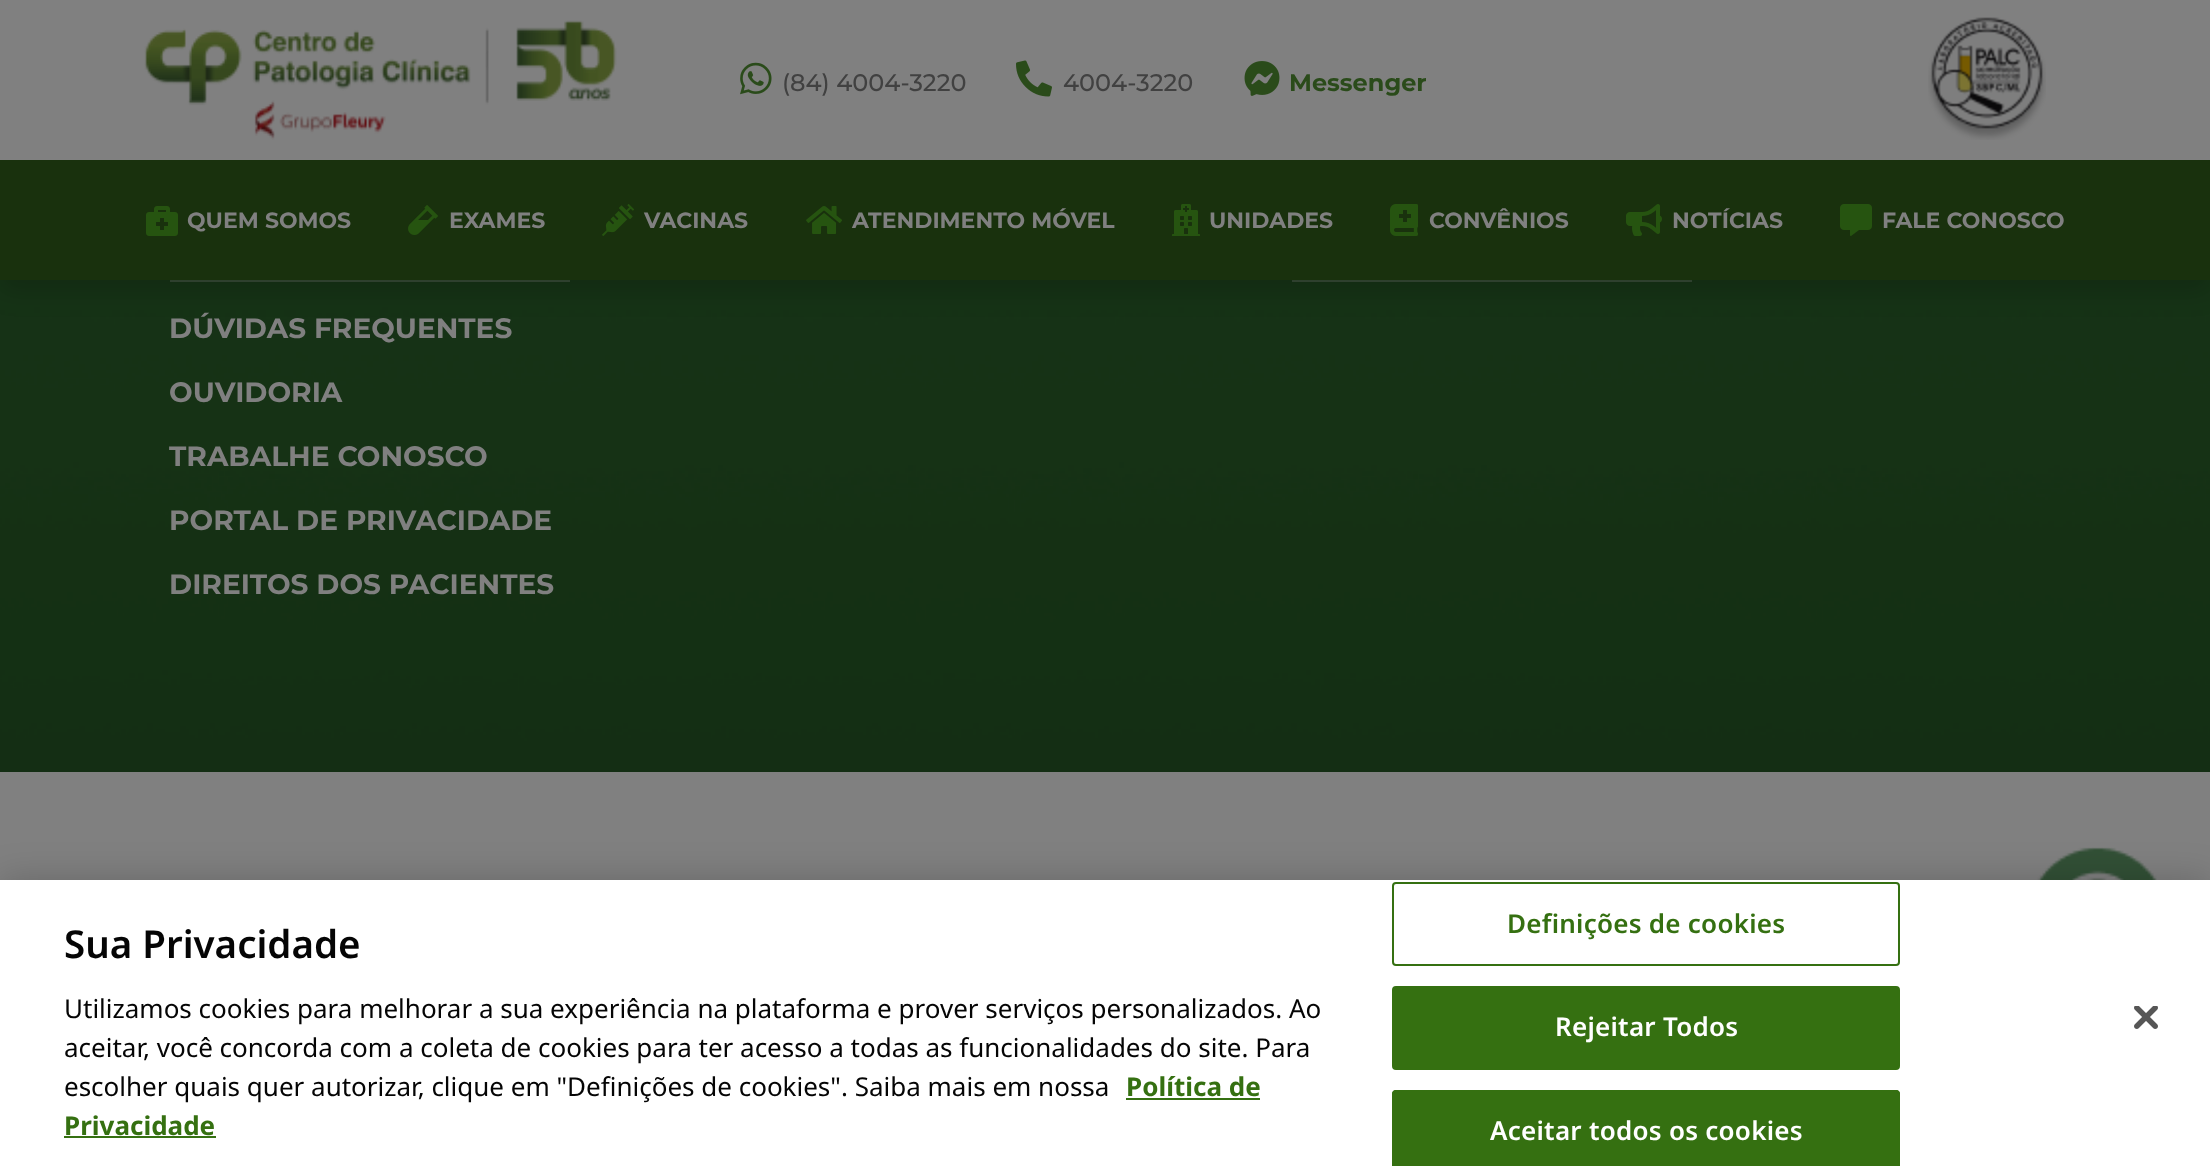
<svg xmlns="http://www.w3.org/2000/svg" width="2210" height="1166">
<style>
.a{font:500 24px Montserrat;fill:#414141}
.b{font:bold 24px Montserrat;fill:#2a4b1a}
.c{font:bold 22px Montserrat;fill:#808080}
.d{font:bold 28px Montserrat;fill:#808080}
.e{font:600 38.5px Noto Sans;fill:#050505}
.f{font:26px Noto Sans;fill:#050505}
.g{font:bold 26px Noto Sans;fill:#357011}
.h{font:600 26px Noto Sans;letter-spacing:0.25px;fill:#357011}
.i{font:600 26px Noto Sans;letter-spacing:0.25px;fill:#fff}
</style>
<rect width="100%" height="100%" fill="#808080"/>
<image href="14.png" x="0" y="280" width="2210" height="492"/>
<path fill="#364a36" d="M1292 280h400v2H1292z"/>
<path fill="#364a36" d="M170 280h400v2H170z"/>
<path fill="#00000029" filter="blur(12px)" d="M0 12h2210v280H0z"/>
<path fill="#808080" d="M0 0h2210v160H0z"/>
<image href="1.png" x="144" y="20" width="473" height="120"/>
<image href="2.png" x="740" y="62" width="32" height="33"/>
<image href="3.png" x="1016" y="60" width="36" height="37"/>
<image href="4.png" x="1244" y="61" width="36" height="35"/>
<image href="5.png" x="1928" y="17" width="118" height="123"/>
<path fill="#19310d" d="M0 160h2210v120H0z"/>
<image href="6.png" x="146" y="206" width="32" height="30"/>
<image href="7.png" x="408" y="205" width="30" height="30"/>
<image href="8.png" x="602" y="204" width="32" height="32"/>
<image href="9.png" x="806" y="206" width="36" height="28"/>
<image href="10.png" x="1172" y="204" width="28" height="32"/>
<image href="11.png" x="1390" y="204" width="28" height="32"/>
<image href="12.png" x="1626" y="204" width="36" height="32"/>
<image href="13.png" x="1840" y="204" width="32" height="32"/>
<image href="15.png" x="2037" y="847" width="120" height="33"/>
<path fill="#00000033" filter="blur(18px)" d="M0 880h2210v286H0z"/>
<path fill="#fff" d="M0 880h2210v286H0z"/>
<path fill="#357011" d="M1126 1098h134v2H1126z"/>
<path fill="#357011" d="M64 1136h152v2H64z"/>
<rect fill="none" stroke="#357011" stroke-width="2" x="1393" y="883" width="506" height="82" rx="3"/>
<rect fill="#357011" stroke="#357011" stroke-width="2" x="1393" y="987" width="506" height="82" rx="3"/>
<path fill="#357011" d="M1396 1090h500c2 0 4 2 4 4v72h-508v-72c0-2 2-4 4-4z"/>
<rect fill="none" stroke="#357011" stroke-width="2" x="1393" y="1091" width="506" height="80" rx="3"/>
<image href="16.png" x="2134" y="1006" width="24" height="23"/>
<text class="a" x="782" y="91">(84) 4004-3220</text>
<text class="a" x="1063" y="91">4004-3220</text>
<text class="b" x="1289" y="91">Messenger</text>
<text class="c" x="187" y="228">QUEM SOMOS</text>
<text class="c" x="449" y="228">EXAMES</text>
<text class="c" x="644" y="228">VACINAS</text>
<text class="c" x="852" y="228">ATENDIMENTO MÓVEL</text>
<text class="c" x="1209" y="228">UNIDADES</text>
<text class="c" x="1429" y="228">CONVÊNIOS</text>
<text class="c" x="1672" y="228">NOTÍCIAS</text>
<text class="c" x="1882" y="228">FALE CONOSCO</text>
<text class="d" x="169" y="338">DÚVIDAS FREQUENTES</text>
<text class="d" x="169" y="402">OUVIDORIA</text>
<text class="d" x="169" y="466">TRABALHE CONOSCO</text>
<text class="d" x="169" y="530">PORTAL DE PRIVACIDADE</text>
<text class="d" x="169" y="594">DIREITOS DOS PACIENTES</text>
<text class="e" x="64" y="958">Sua Privacidade</text>
<text class="f" x="64" y="1018">Utilizamos cookies para melhorar a sua experiência na plataforma e prover serviços personalizados. Ao</text>
<text class="f" x="64" y="1057">aceitar, você concorda com a coleta de cookies para ter acesso a todas as funcionalidades do site. Para</text>
<text class="f" x="64" y="1096">escolher quais quer autorizar, clique em "Definições de cookies". Saiba mais em nossa</text>
<text class="g" x="1126" y="1096">Política de</text>
<text class="g" x="64" y="1135">Privacidade</text>
<text class="h" x="1507" y="933">Definições de cookies</text>
<text class="i" x="1555" y="1036">Rejeitar Todos</text>
<text class="i" x="1490" y="1140">Aceitar todos os cookies</text>
</svg>
